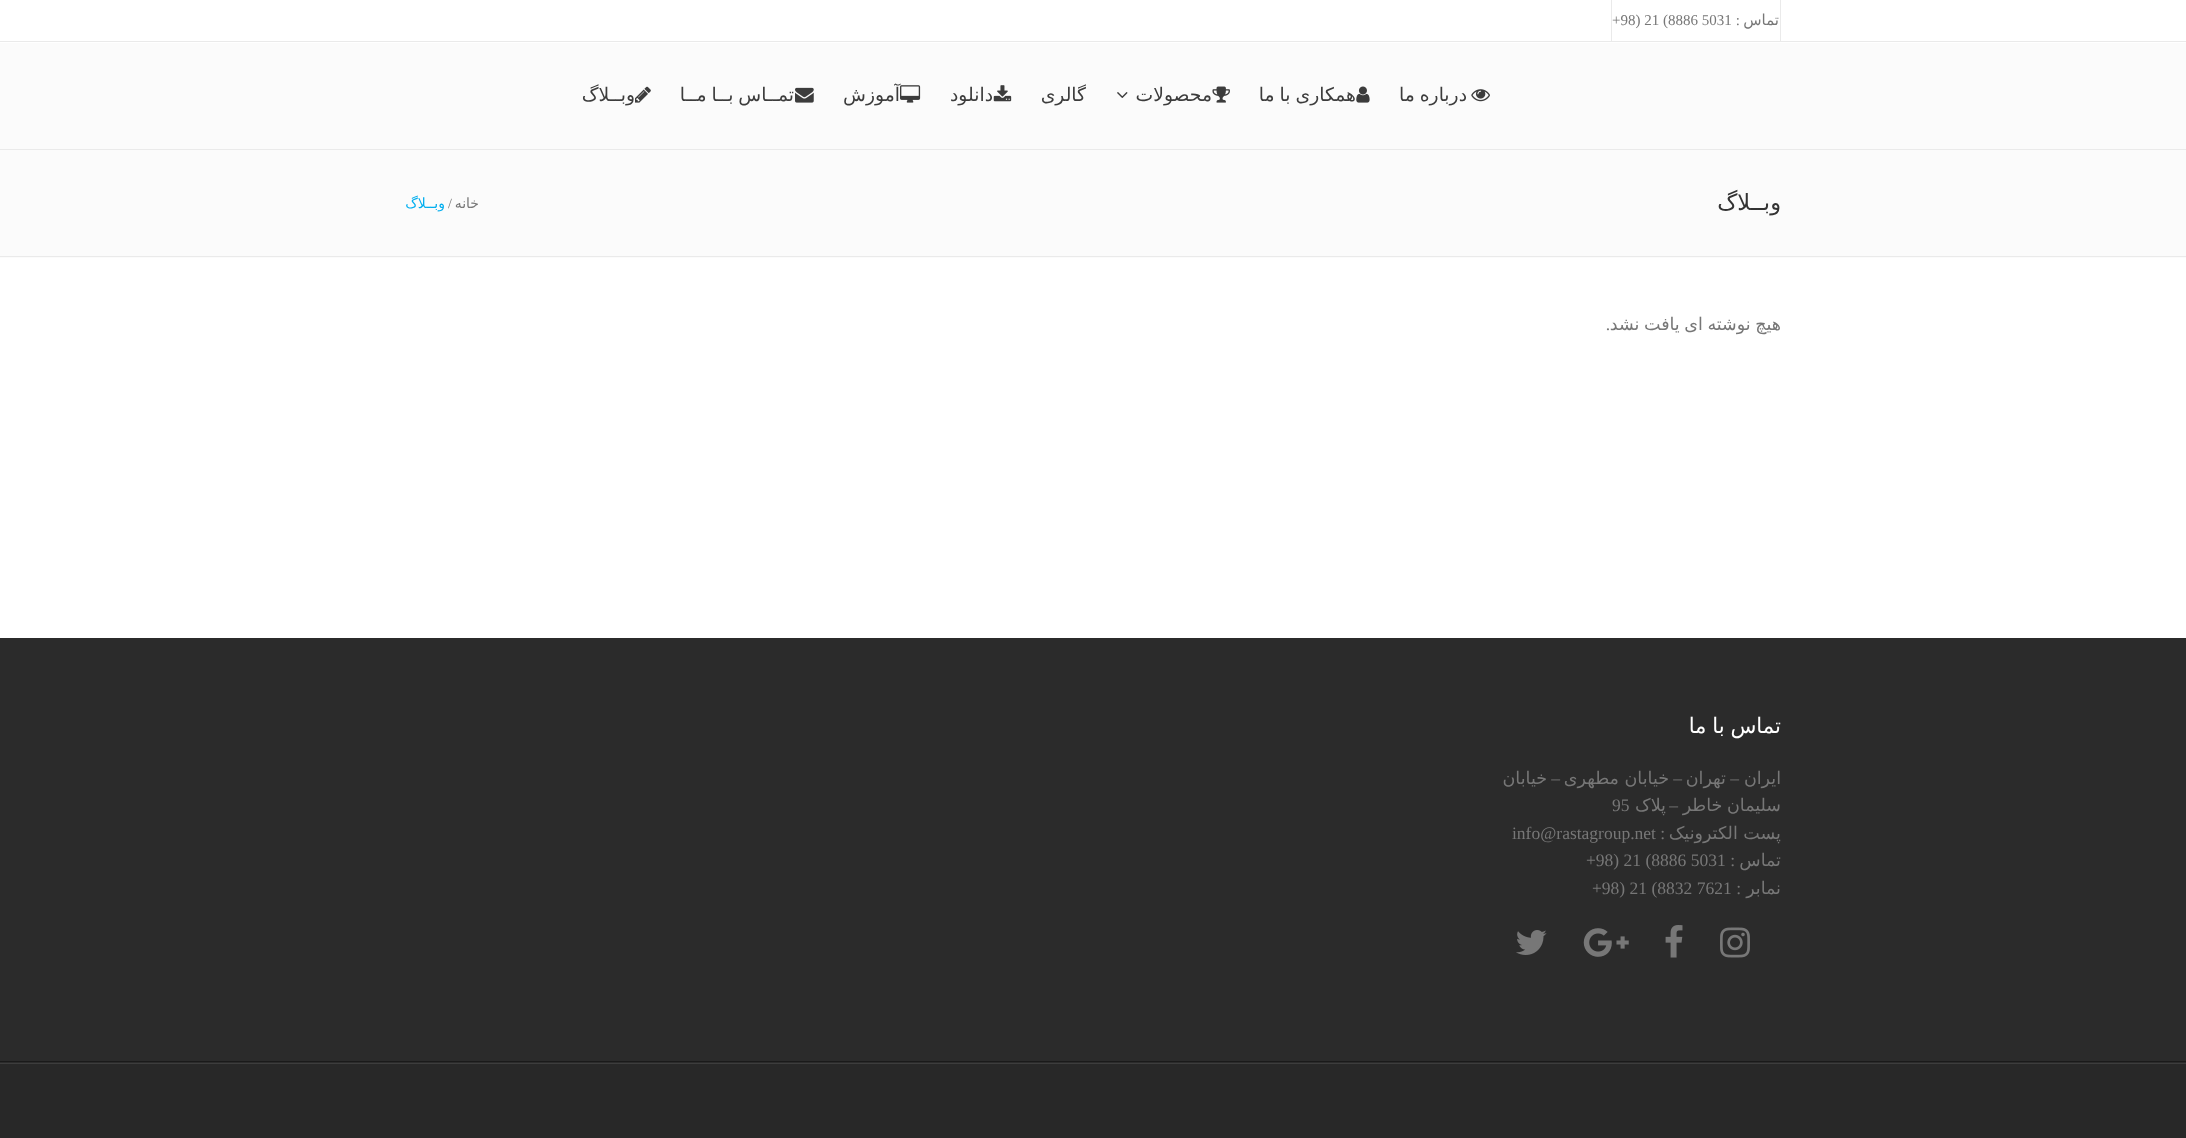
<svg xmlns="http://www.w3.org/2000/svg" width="2186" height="1138">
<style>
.a{font:15px DejaVu Sans;direction:rtl;fill:#777}
.b{font:15px Liberation Serif;direction:rtl;fill:#777}
.c{font:15px Liberation Serif;fill:#777}
.d{font:18.75px DejaVu Sans;direction:rtl;fill:#3c3c3c}
.e{font:22.5px DejaVu Sans;direction:rtl;fill:#333}
.f{font:14px DejaVu Sans;direction:rtl;fill:#777}
.g{font:14px Liberation Serif;fill:#777}
.h{font:14px DejaVu Sans;direction:rtl;fill:#00aeef}
.i{font:17.5px DejaVu Sans;direction:rtl;fill:#777}
.j{font:17.5px Liberation Serif;direction:rtl;fill:#777}
.k{font:21.25px DejaVu Sans;direction:rtl;fill:#fff}
.l{font:17.5px Liberation Serif;fill:#777}
</style>
<rect width="100%" height="100%" fill="#fff"/>
<path fill="#eaeaea" d="M0 41h2186v1H0z"/>
<path fill="#eaeaea" d="M1780 0h1v41H1780z"/>
<path fill="#eaeaea" d="M1611 0h1v41H1611z"/>
<path fill="#fbfbfb" d="M0 43h2186v215H0z"/>
<path fill="#eaeaea" d="M0 149h2186v1H0z"/>
<image href="1.png" x="1471" y="89" width="19" height="13"/>
<image href="2.png" x="1356" y="86" width="14" height="17"/>
<image href="3.png" x="1212" y="86" width="18" height="17"/>
<image href="4.png" x="1117" y="92" width="11" height="6"/>
<image href="5.png" x="993" y="85" width="19" height="17"/>
<image href="6.png" x="900" y="85" width="21" height="18"/>
<image href="7.png" x="795" y="87" width="19" height="16"/>
<image href="8.png" x="635" y="86" width="16" height="17"/>
<path fill="#eaeaea" d="M0 256h2186v1H0z"/>
<path fill="#2b2b2b" d="M0 638h2186v425H0z"/>
<path fill="#3d3d3d" d="M0 1063h2186v1H0z"/>
<path fill="#1a1a1a" d="M0 1061h2186v1H0z"/>
<image href="9.png" x="1720" y="927" width="30" height="31"/>
<image href="10.png" x="1665" y="925" width="18" height="33"/>
<image href="11.png" x="1583" y="928" width="46" height="29"/>
<image href="12.png" x="1516" y="930" width="31" height="25"/>
<path fill="#282828" d="M0 1064h2186v74H0z"/>
<text class="a" x="1779" y="25">تماس</text>
<text class="b" x="1740" y="25">:</text>
<text class="c" x="1612" y="25">+98) 21 (8886 5031</text>
<text class="d" x="1467" y="101" word-spacing="-1">درباره ما</text>
<text class="d" x="1356" y="101" word-spacing="-1">همکاری با ما</text>
<text class="d" x="1212" y="101">محصولات</text>
<text class="d" x="1086" y="101">گالری</text>
<text class="d" x="993" y="101">دانلود</text>
<text class="d" x="900" y="101">آموزش</text>
<text class="d" x="794" y="101" word-spacing="-1">تمــاس بــا مــا</text>
<text class="d" x="635" y="101">وبــلاگ</text>
<text class="e" x="1781" y="210">وبــلاگ</text>
<text class="f" x="479" y="208">خانه</text>
<text class="g" x="448" y="208">/</text>
<text class="h" x="445" y="208">وبــلاگ</text>
<text class="i" x="1781" y="330" word-spacing="-1">هیچ نوشته ای یافت نشد</text>
<text class="j" x="1610" y="330">.</text>
<text class="k" x="1781" y="733" word-spacing="-1">تماس با ما</text>
<text class="i" x="1781" y="784">ایران</text>
<text class="j" x="1739" y="784">–</text>
<text class="i" x="1726" y="784">تهران</text>
<text class="j" x="1682" y="784">–</text>
<text class="i" x="1669" y="784">خیابان مطهری</text>
<text class="j" x="1560" y="784">–</text>
<text class="i" x="1547" y="784">خیابان</text>
<text class="i" x="1781" y="811" word-spacing="-1">سلیمان خاطر</text>
<text class="j" x="1678" y="811">–</text>
<text class="i" x="1666" y="811">پلاک</text>
<text class="l" x="1612" y="811">95</text>
<text class="i" x="1781" y="839">پست الکترونیک</text>
<text class="j" x="1665" y="839">:</text>
<text class="l" x="1512" y="839">info@rastagroup.net</text>
<text class="i" x="1781" y="866">تماس</text>
<text class="j" x="1735" y="866">:</text>
<text class="l" x="1586" y="866">+98) 21 (8886 5031</text>
<text class="i" x="1781" y="894">نمابر</text>
<text class="j" x="1741" y="894">:</text>
<text class="l" x="1592" y="894">+98) 21 (8832 7621</text>
</svg>
